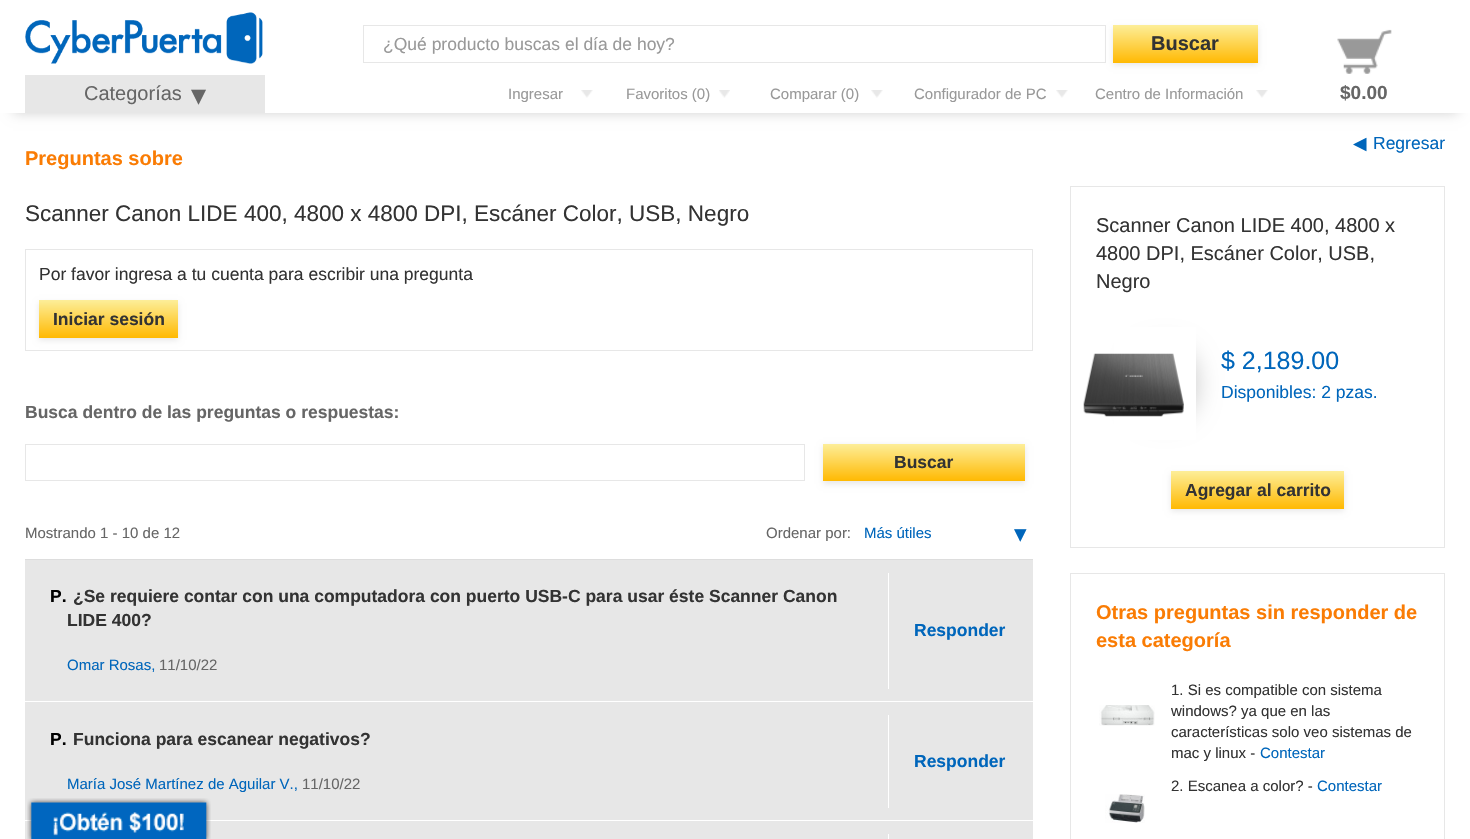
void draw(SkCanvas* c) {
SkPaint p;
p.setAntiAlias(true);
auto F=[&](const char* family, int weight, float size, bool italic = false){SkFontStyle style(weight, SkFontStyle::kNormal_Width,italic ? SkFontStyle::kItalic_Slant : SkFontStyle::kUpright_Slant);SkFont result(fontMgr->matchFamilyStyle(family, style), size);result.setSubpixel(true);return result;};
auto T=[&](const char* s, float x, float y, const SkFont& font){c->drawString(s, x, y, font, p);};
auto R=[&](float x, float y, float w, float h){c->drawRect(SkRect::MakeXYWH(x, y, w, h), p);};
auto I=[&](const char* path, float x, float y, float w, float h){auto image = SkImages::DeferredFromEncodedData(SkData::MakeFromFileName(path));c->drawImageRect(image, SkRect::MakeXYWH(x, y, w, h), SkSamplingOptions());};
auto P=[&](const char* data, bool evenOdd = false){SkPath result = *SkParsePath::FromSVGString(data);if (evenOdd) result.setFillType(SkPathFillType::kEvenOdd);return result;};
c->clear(0xffffffff);
c->save();
c->clipPath(P("M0 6h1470v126h-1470zm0-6h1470v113h-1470z",true),true);
p.setColor(0xffd2d2d2);
p.setMaskFilter(SkMaskFilter::MakeBlur(kNormal_SkBlurStyle, 6));
c->drawRect(SkRect::MakeXYWH(13,25,1445,88),p);
p.setMaskFilter(nullptr);
c->restore();
I("1.png",25,12,238,52);
p.setStroke(true);
p.setStrokeWidth(1);
p.setColor(0xffe7e7e7);
c->drawRect(SkRect::MakeXYWH(363.5,25.5,742,37),p);
auto f1 = F("Liberation Sans",400,17.5);
p.setStroke(false);
p.setColor(0xff999999);
T("¿Qué producto buscas el día de hoy?",383,50,f1);
p.setColor(0xffe7e7e7);
p.setMaskFilter(SkMaskFilter::MakeBlur(kNormal_SkBlurStyle, 3));
c->drawRect(SkRect::MakeXYWH(1113,28,145,37),p);
p.setMaskFilter(nullptr);
{
const SkColor colors[] = {0xfffdee99,0xffffb902};
const float stops[] = {0,1};
const SkPoint ends[] = {{1185,25}, {1185,63}};
p.setShader(SkGradientShader::MakeLinear(ends, colors, stops, 2, SkTileMode::kClamp));
p.setAlpha(255);
}
R(1113,25,145,38);
auto f2 = F("Liberation Sans",700,20);
p.setShader(nullptr);
p.setColor(0xff333333);
T("Buscar",1151,50,f2);
p.setColor(0xffe7e7e7);
R(25,75,240,38);
auto f3 = F("Liberation Sans",400,20);
p.setColor(0xff666666);
T("Categorías",84,100,f3);
auto f4 = F("DejaVu Sans",400,30);
T("▾",191,105,f4);
I("2.png",581,90,12,8);
auto f5 = F("Liberation Sans",400,15);
p.setColor(0xff999999);
T("Ingresar",508,99,f5);
I("3.png",719,90,11,8);
T("Favoritos (0)",626,99,f5);
I("4.png",871,90,12,8);
T("Comparar (0)",770,99,f5);
I("2.png",1056,90,12,8);
T("Configurador de PC",914,99,f5);
I("2.png",1256,90,12,8);
T("Centro de Información",1095,99,f5);
p.setColor(0xffffffff);
R(1295,112,138,1);
I("5.png",1337,29,55,45);
auto f6 = F("Liberation Sans",700,19);
p.setColor(0xff666666);
T("$0.00",1340,99,f6);
auto f7 = F("DejaVu Sans",400,17.5);
p.setColor(0xff0066bb);
T("◀",1353,149,f7);
T("Regresar",1373,149,f1);
p.setColor(0xfffa7c04);
T("Preguntas sobre",25,165,f2);
auto f8 = F("Liberation Sans",400,22.5);
p.setColor(0xff333333);
T("Scanner Canon LIDE 400, 4800 x 4800 DPI, Escáner Color, USB, Negro",25,221,f8);
p.setStroke(true);
p.setColor(0xffe7e7e7);
c->drawRect(SkRect::MakeXYWH(25.5,249.5,1007,101),p);
p.setStroke(false);
p.setColor(0xff333333);
T("Por favor ingresa a tu cuenta para escribir una pregunta",39,280,f1);
p.setColor(0xffe7e7e7);
p.setMaskFilter(SkMaskFilter::MakeBlur(kNormal_SkBlurStyle, 3));
c->drawRect(SkRect::MakeXYWH(39,303,139,37),p);
p.setMaskFilter(nullptr);
{
const SkColor colors[] = {0xfffdee99,0xffffb902};
const float stops[] = {0,1};
const SkPoint ends[] = {{108,300}, {108,338}};
p.setShader(SkGradientShader::MakeLinear(ends, colors, stops, 2, SkTileMode::kClamp));
p.setAlpha(255);
}
R(39,300,139,38);
auto f9 = F("Liberation Sans",700,17.5);
p.setShader(nullptr);
p.setColor(0xff333333);
T("Iniciar sesión",53,325,f9);
p.setColor(0xff666666);
T("Busca dentro de las preguntas o respuestas:",25,418,f9);
p.setStroke(true);
p.setColor(0xffe7e7e7);
c->drawRect(SkRect::MakeXYWH(25.5,444.5,779,36),p);
p.setStroke(false);
p.setMaskFilter(SkMaskFilter::MakeBlur(kNormal_SkBlurStyle, 3));
c->drawRect(SkRect::MakeXYWH(823,446,202,38),p);
p.setMaskFilter(nullptr);
{
const SkColor colors[] = {0xfffdee99,0xffffb902};
const float stops[] = {0,1};
const SkPoint ends[] = {{924,444}, {924,481}};
p.setShader(SkGradientShader::MakeLinear(ends, colors, stops, 2, SkTileMode::kClamp));
p.setAlpha(255);
}
R(823,444,202,37);
p.setShader(nullptr);
p.setColor(0xff333333);
T("Buscar",894,468,f9);
p.setColor(0xffdddddd);
R(25,559,1008,1);
p.setColor(0xff666666);
T("Mostrando 1 - 10 de 12",25,538,f5);
T("Ordenar por:",766,538,f5);
p.setColor(0xff0066bb);
T("Más útiles",864,538,f5);
auto f10 = F("DejaVu Sans",400,25);
T("▾",1014,542,f10);
p.setColor(0xffe7e7e7);
R(25,560,1008,260);
p.setColor(0xffffffff);
R(25,701,1008,1);
R(888,573,1,116);
p.setColor(0xff000000);
T("P.",50,602,f9);
p.setColor(0xff333333);
T("¿Se requiere contar con una computadora con puerto USB-C para usar éste Scanner Canon",73,602,f9);
T("LIDE 400?",67,626,f9);
p.setColor(0xff0066bb);
T("Omar Rosas,",67,670,f5);
p.setColor(0xff666666);
T("11/10/22",159,670,f5);
p.setColor(0xff0066bb);
T("Responder",914,636,f9);
p.setColor(0xffffffff);
R(888,715,1,93);
p.setColor(0xff000000);
T("P.",50,745,f9);
p.setColor(0xff333333);
T("Funciona para escanear negativos?",73,745,f9);
p.setColor(0xff0066bb);
T("María José Martínez de Aguilar V.,",67,789,f5);
p.setColor(0xff666666);
T("11/10/22",302,789,f5);
p.setColor(0xff0066bb);
T("Responder",914,767,f9);
p.setColor(0xffe7e7e7);
R(25,821,1008,18);
p.setColor(0xffffffff);
R(888,834,1,5);
p.setStroke(true);
p.setColor(0xffe7e7e7);
c->drawRect(SkRect::MakeXYWH(1070.5,186.5,374,361),p);
p.setStroke(false);
p.setColor(0xff333333);
T("Scanner Canon LIDE 400, 4800 x",1096,232,f3);
T("4800 DPI, Escáner Color, USB,",1096,260,f3);
T("Negro",1096,288,f3);
p.setColor(0xffc8c8c8);
p.setMaskFilter(SkMaskFilter::MakeBlur(kNormal_SkBlurStyle, 12.5));
c->drawRoundRect(SkRect::MakeXYWH(1134,346,62,75),31,31,p);
p.setMaskFilter(nullptr);
p.setColor(0xffffffff);
R(1114,327,82,113);
I("6.png",1083,353,101,64);
auto f11 = F("Liberation Sans",400,25);
p.setColor(0xff0066bb);
T("$ 2,189.00",1221,369,f11);
T("Disponibles: 2 pzas.",1221,398,f1);
p.setColor(0xffe7e7e7);
p.setMaskFilter(SkMaskFilter::MakeBlur(kNormal_SkBlurStyle, 3));
c->drawRect(SkRect::MakeXYWH(1171,474,173,37),p);
p.setMaskFilter(nullptr);
{
const SkColor colors[] = {0xfffdee99,0xffffb902};
const float stops[] = {0,1};
const SkPoint ends[] = {{1258,471}, {1258,509}};
p.setShader(SkGradientShader::MakeLinear(ends, colors, stops, 2, SkTileMode::kClamp));
p.setAlpha(255);
}
R(1171,471,173,38);
p.setShader(nullptr);
p.setColor(0xff333333);
T("Agregar al carrito",1185,496,f9);
p.setStroke(true);
p.setColor(0xffe7e7e7);
c->drawRect(SkRect::MakeXYWH(1070.5,573.5,374,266),p);
p.setStroke(false);
p.setColor(0xfffa7c04);
T("Otras preguntas sin responder de",1096,619,f2);
T("esta categoría",1096,647,f2);
I("7.png",1099,705,56,21);
p.setColor(0xff333333);
T("1. Si es compatible con sistema",1171,695,f5);
T("windows? ya que en las",1171,716,f5);
T("características solo veo sistemas de",1171,737,f5);
T("mac y linux -",1171,758,f5);
p.setColor(0xff0066bb);
T("Contestar",1260,758,f5);
p.setColor(0xff333333);
T("2. Escanea a color? -",1171,791,f5);
p.setColor(0xff0066bb);
T("Contestar",1317,791,f5);
I("8.png",1105,794,40,29);
I("9.png",27,798,184,41);
}
